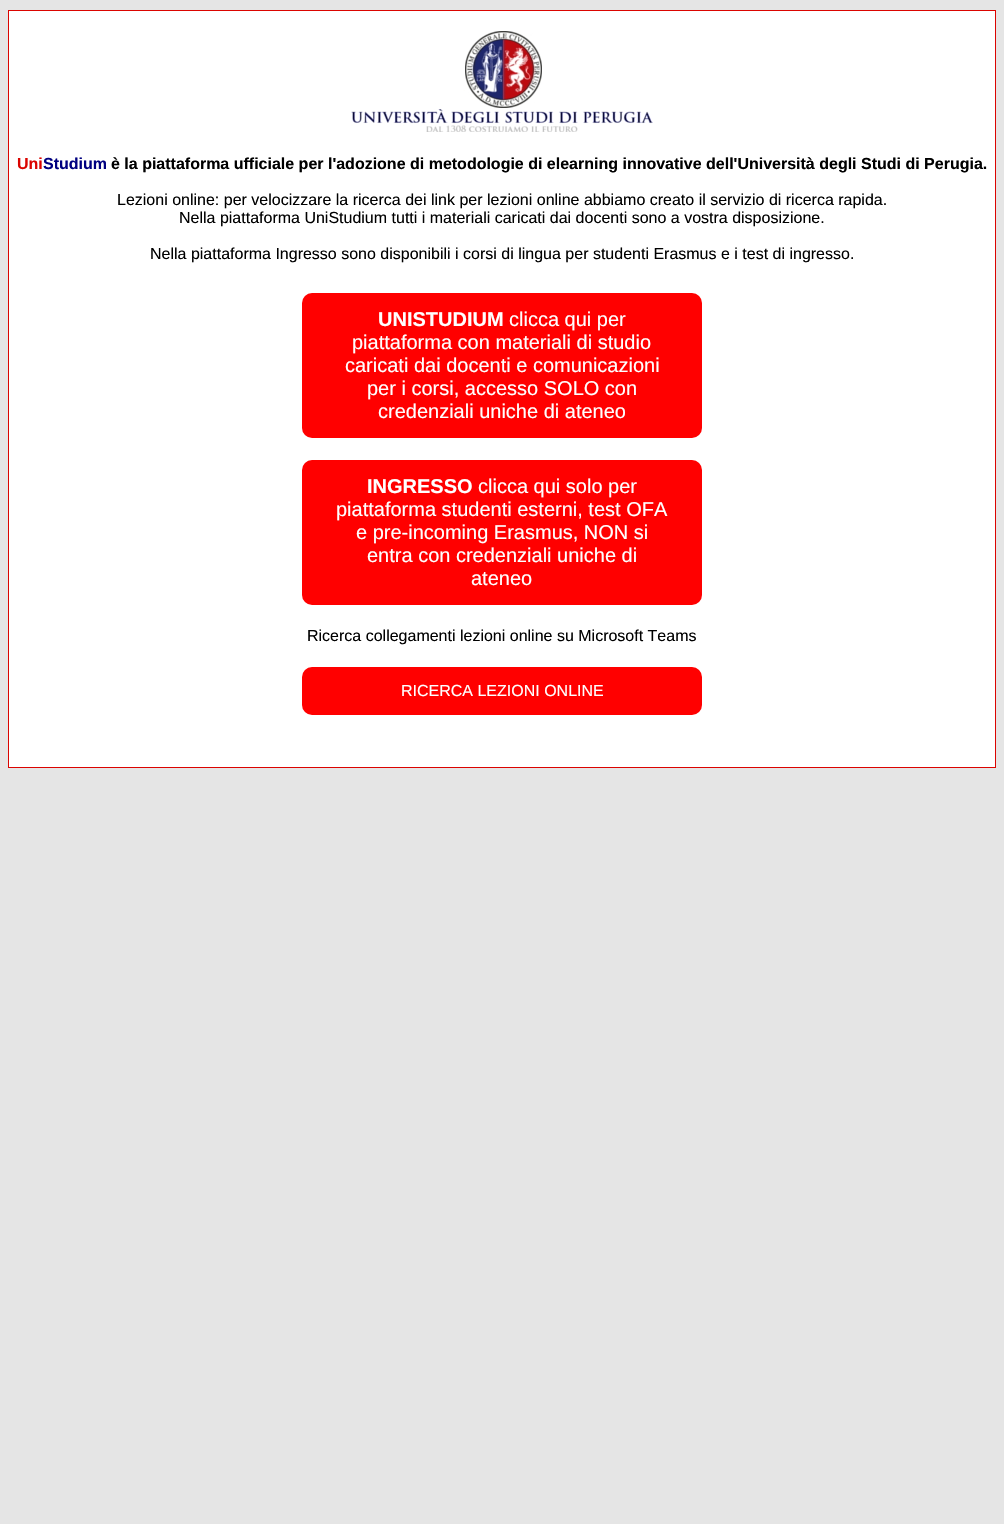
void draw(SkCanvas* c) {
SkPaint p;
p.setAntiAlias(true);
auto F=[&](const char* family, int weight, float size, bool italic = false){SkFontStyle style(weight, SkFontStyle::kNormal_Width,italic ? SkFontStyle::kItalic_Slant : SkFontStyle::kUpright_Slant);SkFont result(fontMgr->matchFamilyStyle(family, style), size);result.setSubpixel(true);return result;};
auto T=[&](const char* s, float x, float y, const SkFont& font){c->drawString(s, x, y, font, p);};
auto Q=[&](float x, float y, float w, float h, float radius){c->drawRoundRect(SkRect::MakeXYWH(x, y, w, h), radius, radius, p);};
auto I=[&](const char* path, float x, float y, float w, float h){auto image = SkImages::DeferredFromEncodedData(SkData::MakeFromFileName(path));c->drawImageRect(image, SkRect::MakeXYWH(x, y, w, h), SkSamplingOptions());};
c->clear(0xffe5e5e5);
p.setColor(0xffffffff);
c->drawRect(SkRect::MakeXYWH(8.5,10.5,987,757),p);
p.setStroke(true);
p.setStrokeWidth(1);
p.setColor(0xffdb0400);
c->drawRect(SkRect::MakeXYWH(8.5,10.5,987,757),p);
I("1.png",351,31,302,101);
auto f1 = F("Liberation Sans",700,16);
p.setStroke(false);
T("Uni",17,169,f1);
p.setColor(0xff000080);
T("Studium",43,169,f1);
p.setColor(0xff000000);
T("è la piattaforma ufficiale per l'adozione di metodologie di elearning innovative dell'Università degli Studi di Perugia.",111,169,f1);
auto f2 = F("Liberation Sans",400,16);
T("Lezioni online: per velocizzare la ricerca dei link per lezioni online abbiamo creato il servizio di ricerca rapida.",117,205,f2);
T("Nella piattaforma UniStudium tutti i materiali caricati dai docenti sono a vostra disposizione.",179,223,f2);
T("Nella piattaforma Ingresso sono disponibili i corsi di lingua per studenti Erasmus e i test di ingresso.",150,259,f2);
p.setColor(0xffff0000);
Q(302,293,400,145,10);
auto f3 = F("Liberation Sans",700,20);
p.setColor(0xffffffff);
T("UNISTUDIUM",378,326,f3);
auto f4 = F("Liberation Sans",400,20);
T("clicca qui per",509,326,f4);
T("piattaforma con materiali di studio",352,349,f4);
T("caricati dai docenti e comunicazioni",345,372,f4);
T("per i corsi, accesso SOLO con",367,395,f4);
T("credenziali uniche di ateneo",378,418,f4);
p.setColor(0xffff0000);
Q(302,460,400,145,10);
p.setColor(0xffffffff);
T("INGRESSO",367,493,f3);
T("clicca qui solo per",478,493,f4);
T("piattaforma studenti esterni, test OFA",336,516,f4);
T("e pre-incoming Erasmus, NON si",356,539,f4);
T("entra con credenziali uniche di",367,562,f4);
T("ateneo",471,585,f4);
p.setColor(0xff000000);
T("Ricerca collegamenti lezioni online su Microsoft Teams",307,641,f2);
p.setColor(0xffff0000);
Q(302,667,400,48,10);
p.setColor(0xffffffff);
T("RICERCA LEZIONI ONLINE",401,696,f2);
}
